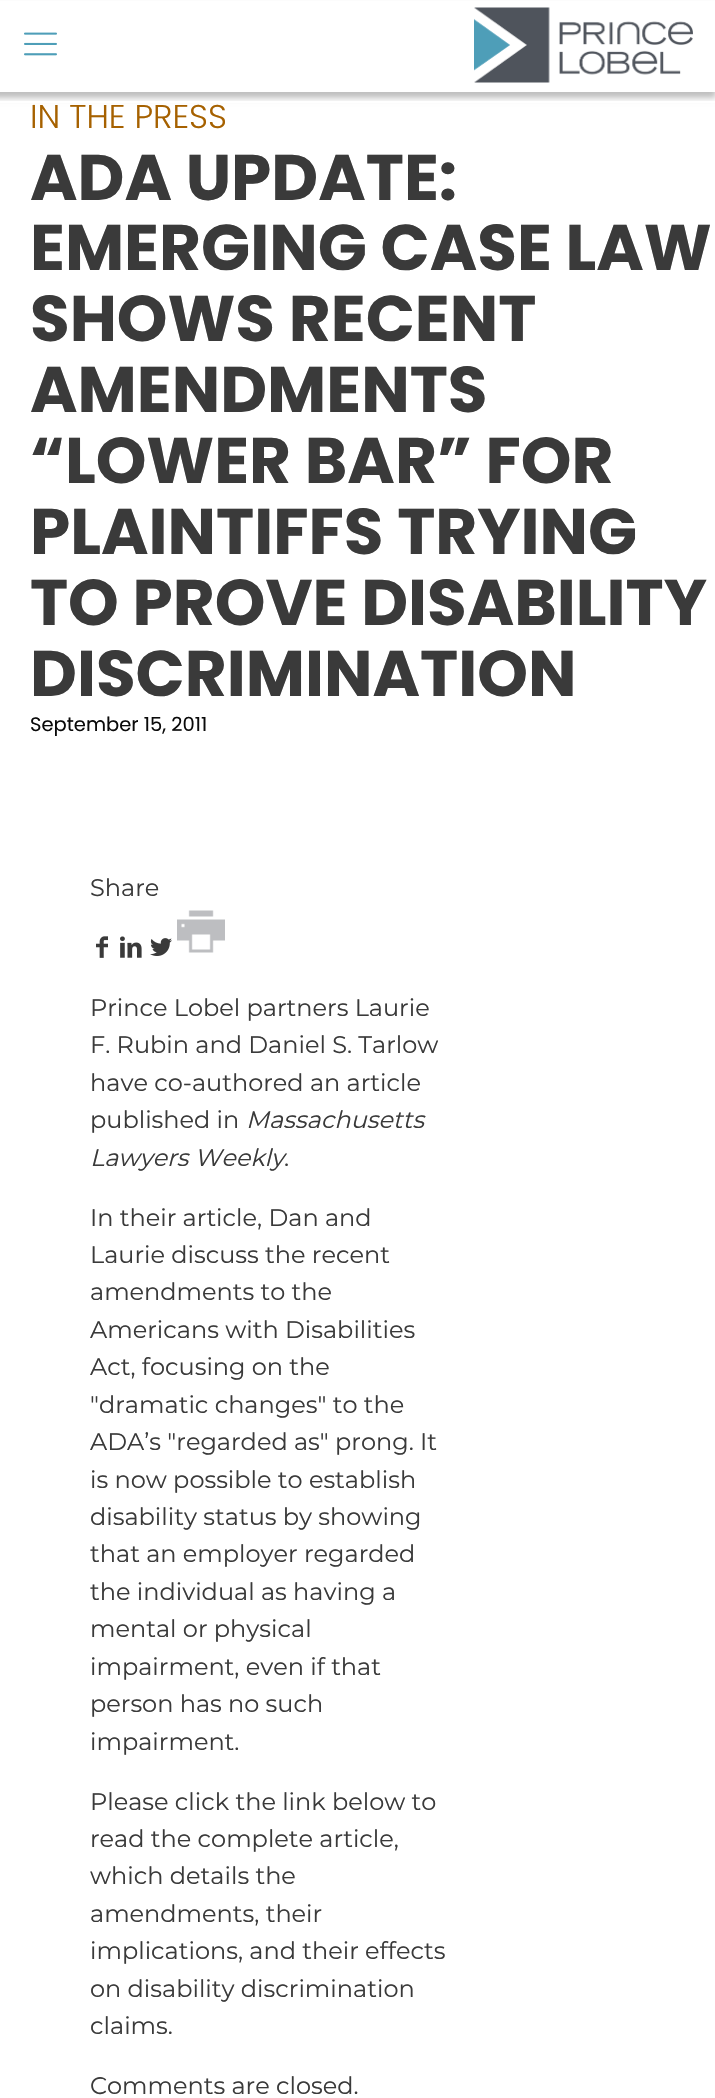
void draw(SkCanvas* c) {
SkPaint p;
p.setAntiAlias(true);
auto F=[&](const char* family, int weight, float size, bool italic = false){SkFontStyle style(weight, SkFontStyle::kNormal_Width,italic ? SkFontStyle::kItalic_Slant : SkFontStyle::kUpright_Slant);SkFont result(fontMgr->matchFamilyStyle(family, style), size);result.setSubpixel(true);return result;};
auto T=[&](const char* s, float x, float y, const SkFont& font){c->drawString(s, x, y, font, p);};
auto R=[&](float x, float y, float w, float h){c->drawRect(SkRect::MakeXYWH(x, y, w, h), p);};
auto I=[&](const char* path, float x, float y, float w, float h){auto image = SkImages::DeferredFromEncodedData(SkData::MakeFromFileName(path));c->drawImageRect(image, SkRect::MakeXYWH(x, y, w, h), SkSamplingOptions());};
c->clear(0xffffffff);
p.setColor(0x40000000);
p.setMaskFilter(SkMaskFilter::MakeBlur(kNormal_SkBlurStyle, 3));
c->drawRect(SkRect::MakeXYWH(-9,6,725,92),p);
p.setMaskFilter(nullptr);
p.setColor(0xffffffff);
R(0,1,715,91);
I("1.png",24,32,33,24);
I("2.png",474,7,219,76);
R(0,101,715,2);
auto f1 = F("Poppins",300,33);
p.setColor(0xffa66100);
T("IN THE PRESS",30,128,f1);
auto f2 = F("Poppins",700,64.5);
p.setColor(0xff3a3a3a);
T("ADA UPDATE:",30,200,f2);
T("EMERGING CASE LAW",30,270,f2);
T("SHOWS RECENT",30,341,f2);
T("AMENDMENTS",30,412,f2);
T("“LOWER BAR” FOR",30,483,f2);
T("PLAINTIFFS TRYING",30,554,f2);
T("TO PROVE DISABILITY",30,625,f2);
T("DISCRIMINATION",30,696,f2);
auto f3 = F("Poppins",400,19.5);
p.setColor(0xff0a0a0a);
T("September 15, 2011",30,731,f3);
auto f4 = F("Montserrat",400,24);
p.setColor(0xff3a3a3a);
T("Share",90,896,f4);
I("3.png",96,936,12,22);
I("4.png",120,936,22,22);
I("5.png",150,938,22,18);
I("6.png",177,910,48,43);
T("Prince Lobel partners Laurie",90,1016,f4);
T("F. Rubin and Daniel S. Tarlow",90,1053,f4);
T("have co-authored an article",90,1091,f4);
T("published in",90,1128,f4);
auto f5 = F("Montserrat",400,24,true);
T("Massachusetts",246,1128,f5);
T("Lawyers Weekly",90,1166,f5);
T(".",284,1166,f4);
T("In their article, Dan and",90,1226,f4);
T("Laurie discuss the recent",90,1263,f4);
T("amendments to the",90,1300,f4);
T("Americans with Disabilities",90,1338,f4);
T("Act, focusing on the",90,1375,f4);
T("\"dramatic changes\" to the",90,1413,f4);
T("ADA’s \"regarded as\" prong. It",90,1450,f4);
T("is now possible to establish",90,1488,f4);
T("disability status by showing",90,1525,f4);
T("that an employer regarded",90,1562,f4);
T("the individual as having a",90,1600,f4);
T("mental or physical",90,1637,f4);
T("impairment, even if that",90,1675,f4);
T("person has no such",90,1712,f4);
T("impairment.",90,1750,f4);
T("Please click the link below to",90,1810,f4);
T("read the complete article,",90,1847,f4);
T("which details the",90,1884,f4);
T("amendments, their",90,1922,f4);
T("implications, and their effects",90,1959,f4);
T("on disability discrimination",90,1997,f4);
T("claims.",90,2034,f4);
T("Comments are closed.",90,2094,f4);
}
